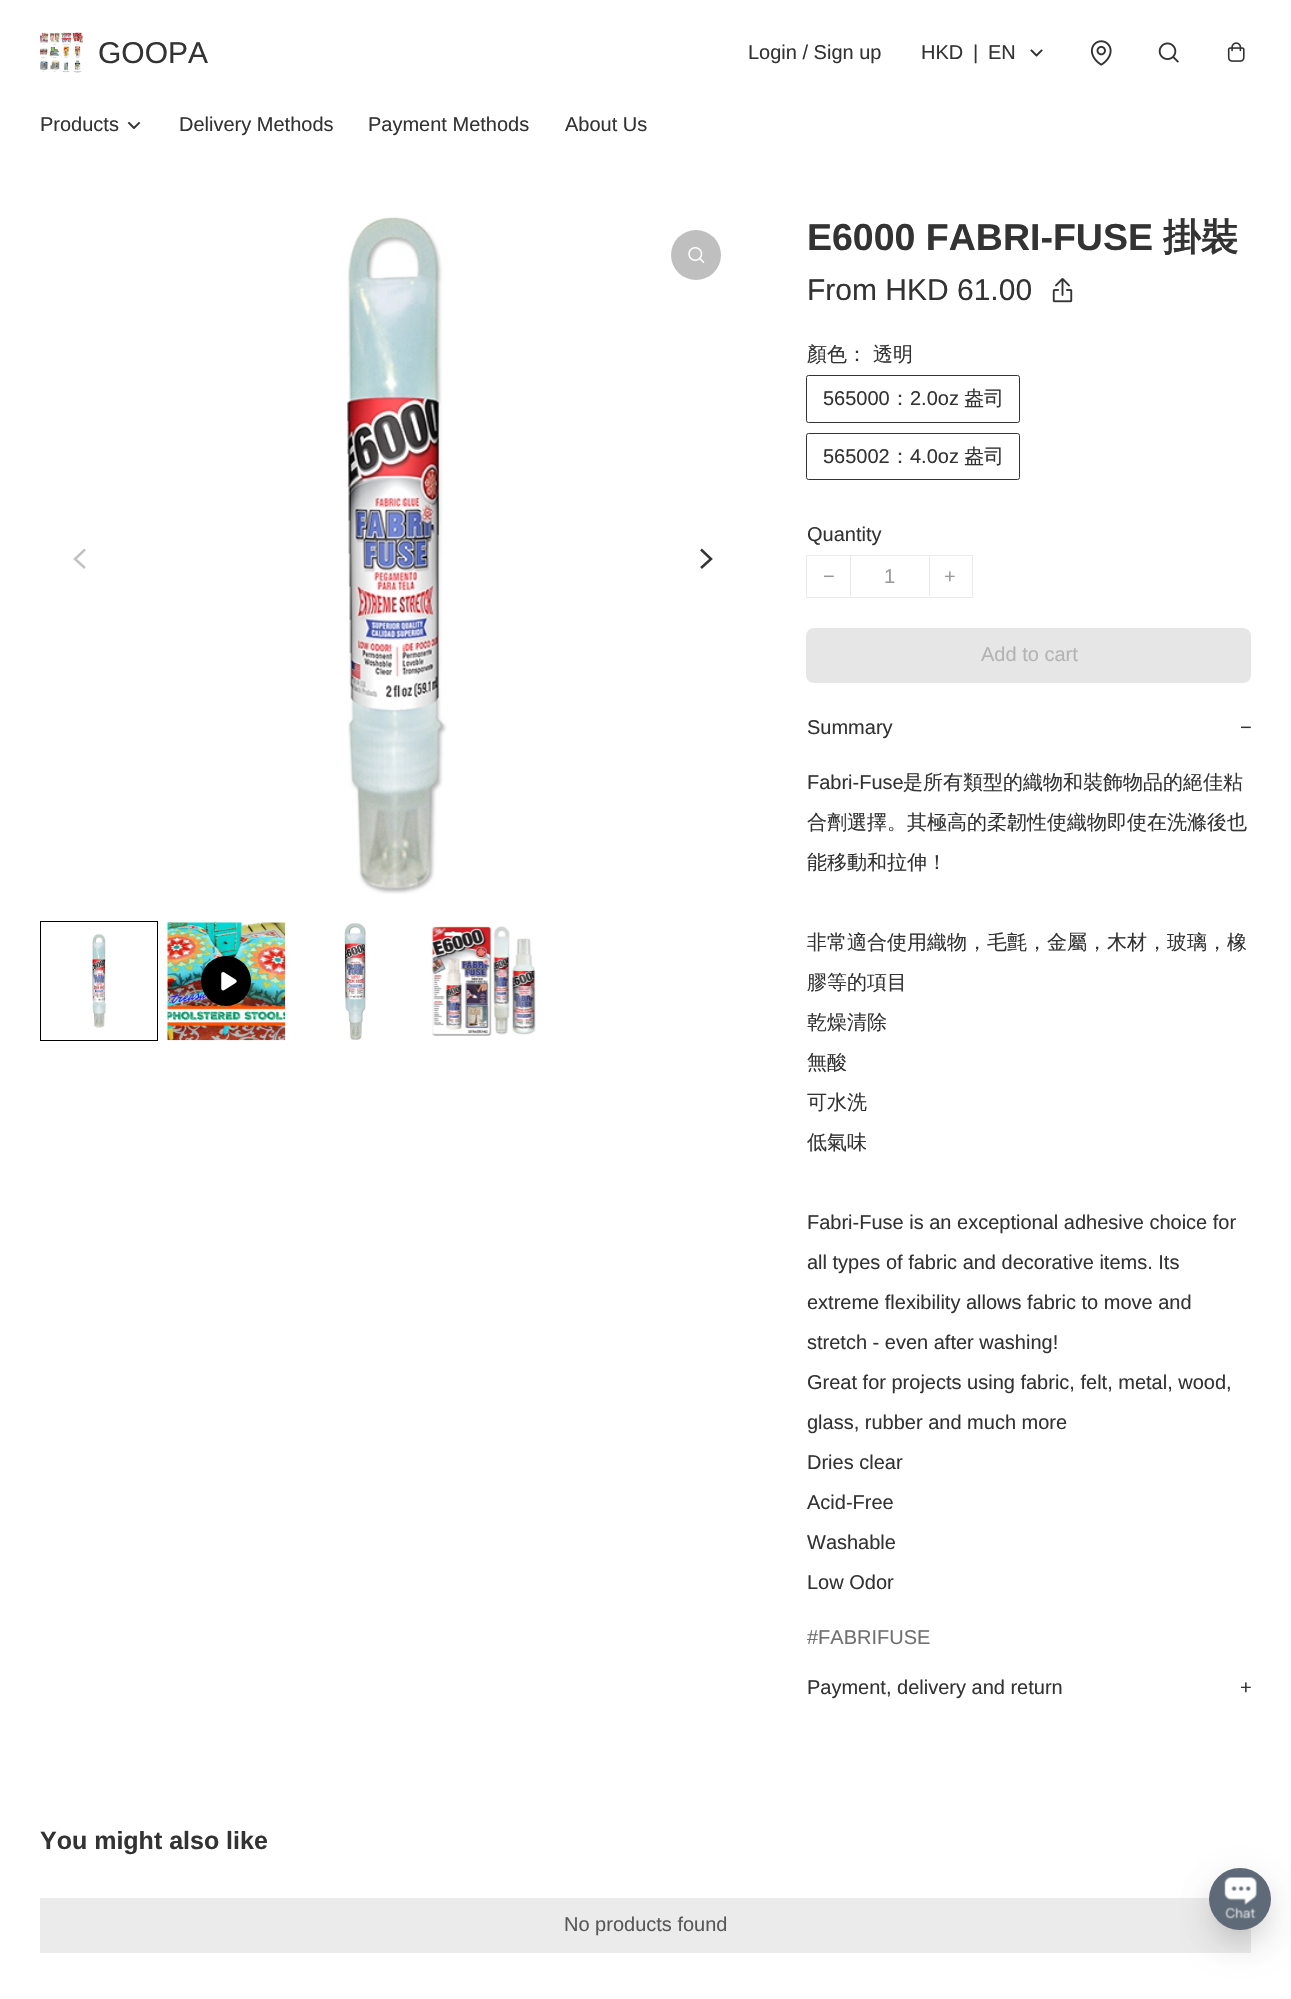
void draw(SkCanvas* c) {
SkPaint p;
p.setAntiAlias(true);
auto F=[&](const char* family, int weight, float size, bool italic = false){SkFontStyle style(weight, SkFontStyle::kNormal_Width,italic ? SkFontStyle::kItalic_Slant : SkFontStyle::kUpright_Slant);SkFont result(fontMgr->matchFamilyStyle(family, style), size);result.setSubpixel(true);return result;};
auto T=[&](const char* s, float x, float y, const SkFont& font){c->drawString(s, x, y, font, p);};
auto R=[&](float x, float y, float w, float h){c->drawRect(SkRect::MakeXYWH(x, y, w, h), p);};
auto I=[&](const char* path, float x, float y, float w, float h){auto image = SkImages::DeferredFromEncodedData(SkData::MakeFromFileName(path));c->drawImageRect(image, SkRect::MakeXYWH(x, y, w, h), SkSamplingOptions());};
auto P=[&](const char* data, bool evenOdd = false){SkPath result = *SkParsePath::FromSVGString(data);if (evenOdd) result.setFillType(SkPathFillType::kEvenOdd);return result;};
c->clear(0xffffffff);
I("1.png",40,32,43,41);
auto f1 = F("Liberation Sans",400,30);
p.setColor(0xff333333);
T("GOOPA",98,63,f1);
auto f2 = F("Liberation Sans",400,20);
T("Login / Sign up",748,59,f2);
T("HKD",921,59,f2);
T("|",973,59,f2);
T("EN",988,59,f2);
p.setStroke(true);
p.setStrokeWidth(1.9);
p.setStrokeCap(SkPaint::kSquare_Cap);
p.setStrokeJoin(SkPaint::kRound_Join);
c->drawPath(P("M1031.5 50.5l5 5l5-5"),p);
I("2.png",1090,40,22,26);
I("3.png",1158,42,21,21);
I("4.png",1227,42,18,20);
p.setStroke(false);
T("Products",40,131,f2);
p.setStroke(true);
c->drawPath(P("M129 123l5 5l5-5"),p);
p.setStroke(false);
T("Delivery Methods",179,131,f2);
T("Payment Methods",368,131,f2);
T("About Us",565,131,f2);
I("5.png",347,216,100,678);
p.setColor(0xffbfbfbf);
c->drawCircle(696,255,25,p);
I("6.png",688,247,17,16);
p.setStroke(true);
p.setStrokeWidth(2.5);
p.setStrokeCap(SkPaint::kButt_Cap);
p.setStrokeJoin(SkPaint::kMiter_Join);
p.setColor(0xffc2c2c2);
c->drawPath(P("M85 549.5l-10 9.5l10 9"),p);
p.setColor(0xff333333);
c->drawPath(P("M701 549.5l10 9.5l-10 9"),p);
p.setStrokeWidth(1);
p.setColor(0xff000000);
c->drawRect(SkRect::MakeXYWH(40.5,921.5,117,119),p);
I("7.png",92,934,14,94);
I("8.png",167,922,119,119);
p.setStroke(false);
c->drawCircle(226,981,25,p);
I("9.png",221,972,16,19);
I("10.png",344,923,22,117);
I("11.png",430,926,106,110);
auto f3 = F("Liberation Sans",700,37.5);
p.setColor(0xff333333);
T("E6000 FABRI-FUSE",807,250,f3);
auto f4 = F("WenQuanYi Zen Hei",700,37.5);
T("掛裝",1163,250,f4);
T("From HKD 61.00",807,300,f1);
I("12.png",1052,278,21,25);
auto f5 = F("WenQuanYi Zen Hei",500,20);
T("顏色： 透明",807,361,f5);
p.setStroke(true);
c->drawRoundRect(SkRect::MakeXYWH(806.5,375.5,213,47),2,2,p);
p.setStroke(false);
T("565000",823,405,f2);
T("：",890,405,f5);
T("2.0oz",910,405,f2);
T("盎司",964,405,f5);
p.setStroke(true);
c->drawRoundRect(SkRect::MakeXYWH(806.5,433.5,213,46),2,2,p);
p.setStroke(false);
T("565002",823,463,f2);
T("：",890,463,f5);
T("4.0oz",910,463,f2);
T("盎司",964,463,f5);
T("Quantity",807,541,f2);
p.setStroke(true);
p.setColor(0xffebebeb);
c->drawRect(SkRect::MakeXYWH(806.5,555.5,166,42),p);
p.setStroke(false);
p.setColor(0xff999999);
T("−",823,583,f2);
p.setColor(0xffebebeb);
R(929,556,1,40);
R(850,556,1,40);
p.setColor(0xff999999);
T("1",884,583,f2);
T("+",944,583,f2);
p.setColor(0xffe6e6e6);
c->drawRoundRect(SkRect::MakeXYWH(807.5,629.5,442,52),6.5,6.5,p);
p.setStroke(true);
p.setStrokeWidth(3);
c->drawRoundRect(SkRect::MakeXYWH(807.5,629.5,442,52),6.5,6.5,p);
p.setStroke(false);
p.setColor(0xffb3b3b3);
T("Add to cart",981,661,f2);
p.setColor(0xff333333);
T("Summary",807,734,f2);
T("−",1240,734,f2);
T("Fabri-Fuse",807,789,f2);
T("是所有類型的織物和裝飾物品的絕佳粘",903,789,f5);
T("合劑選擇。其極高的柔韌性使織物即使在洗滌後也",807,829,f5);
T("能移動和拉伸！",807,869,f5);
T("非常適合使用織物，毛氈，金屬，木材，玻璃，橡",807,949,f5);
T("膠等的項目",807,989,f5);
T("乾燥清除",807,1029,f5);
T("無酸",807,1069,f5);
T("可水洗",807,1109,f5);
T("低氣味",807,1149,f5);
T("Fabri-Fuse is an exceptional adhesive choice for",807,1229,f2);
T("all types of fabric and decorative items. Its",807,1269,f2);
T("extreme flexibility allows fabric to move and",807,1309,f2);
T("stretch - even after washing!",807,1349,f2);
T("Great for projects using fabric, felt, metal, wood,",807,1389,f2);
T("glass, rubber and much more",807,1429,f2);
T("Dries clear",807,1469,f2);
T("Acid-Free",807,1509,f2);
T("Washable",807,1549,f2);
T("Low Odor",807,1589,f2);
p.setColor(0xff707070);
T("#FABRIFUSE",807,1644,f2);
p.setColor(0xff333333);
T("Payment, delivery and return",807,1694,f2);
T("+",1240,1694,f2);
auto f6 = F("Liberation Sans",700,25);
T("You might also like",40,1849,f6);
p.setColor(0xffebebeb);
R(40,1898,1211,55);
p.setColor(0xff585858);
T("No products found",564,1931,f2);
p.setColor(0x4d000000);
p.setMaskFilter(SkMaskFilter::MakeBlur(kNormal_SkBlurStyle, 19));
c->drawRoundRect(SkRect::MakeXYWH(1221,1899,38,37),18.5,18.5,p);
p.setMaskFilter(nullptr);
p.setColor(0x0d000000);
p.setMaskFilter(SkMaskFilter::MakeBlur(kNormal_SkBlurStyle, 12.5));
c->drawRoundRect(SkRect::MakeXYWH(1209,1874,62,62),31,31,p);
p.setMaskFilter(nullptr);
p.setColor(0xff5f6a78);
c->drawCircle(1240,1899,31,p);
I("13.png",1224,1877,33,42);
}
